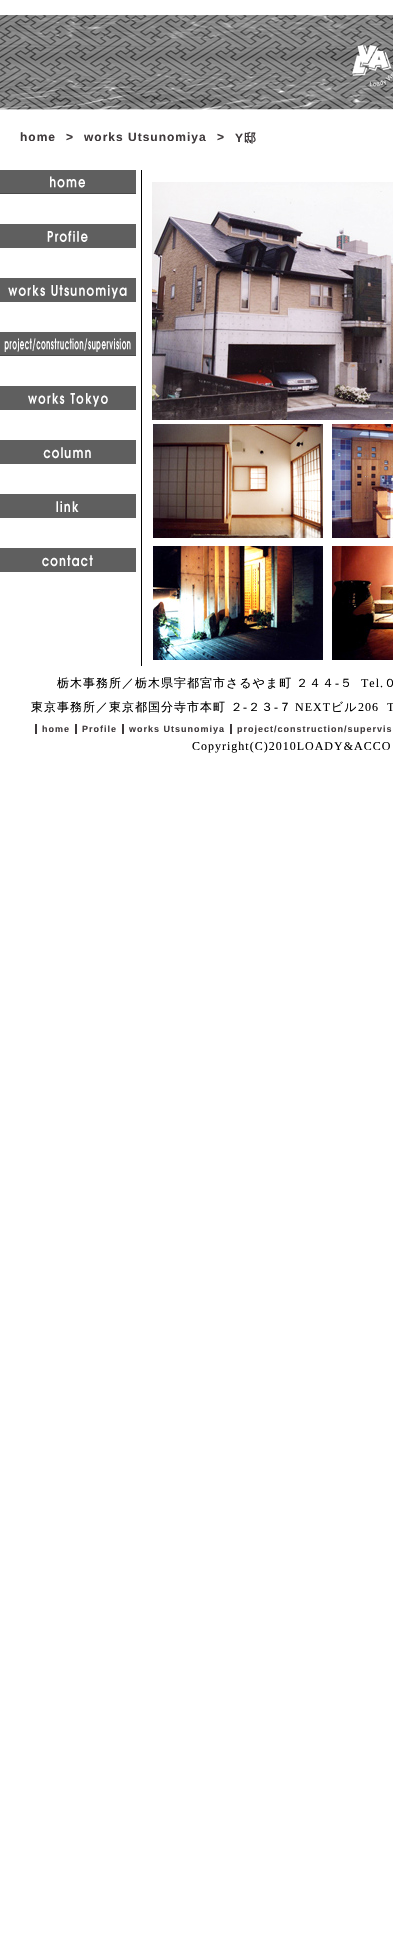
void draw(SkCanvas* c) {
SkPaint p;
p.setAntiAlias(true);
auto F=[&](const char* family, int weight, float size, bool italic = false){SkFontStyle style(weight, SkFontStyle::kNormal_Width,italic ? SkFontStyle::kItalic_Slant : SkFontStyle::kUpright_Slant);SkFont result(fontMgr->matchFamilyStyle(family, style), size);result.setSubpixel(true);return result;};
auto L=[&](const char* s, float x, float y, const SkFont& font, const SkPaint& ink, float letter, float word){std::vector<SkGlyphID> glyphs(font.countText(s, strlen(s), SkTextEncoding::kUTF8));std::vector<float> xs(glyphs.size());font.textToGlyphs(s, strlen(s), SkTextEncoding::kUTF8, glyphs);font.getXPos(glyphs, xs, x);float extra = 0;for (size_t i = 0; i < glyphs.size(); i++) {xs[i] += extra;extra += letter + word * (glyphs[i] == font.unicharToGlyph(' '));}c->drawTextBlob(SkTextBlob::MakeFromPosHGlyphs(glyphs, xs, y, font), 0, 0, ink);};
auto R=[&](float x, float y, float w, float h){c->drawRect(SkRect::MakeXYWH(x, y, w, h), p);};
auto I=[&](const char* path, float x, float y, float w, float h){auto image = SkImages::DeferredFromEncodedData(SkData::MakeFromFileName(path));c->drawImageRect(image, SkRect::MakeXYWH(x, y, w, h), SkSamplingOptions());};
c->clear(0xffffffff);
I("1.png",0,15,393,95);
auto f1 = F("Liberation Sans",700,12);
p.setColor(0xff3f3a3c);
L("home",20,141,f1,p,1,0);
L(">",66,141,f1,p,1,0);
L("works Utsunomiya",84,141,f1,p,1,0);
L(">",217,141,f1,p,1,0);
L("Y",235,142,f1,p,1,0);
auto f2 = F("WenQuanYi Zen Hei",700,12);
L("邸",244,142,f2,p,1,0);
I("2.png",0,170,136,24);
I("3.png",0,224,136,24);
I("4.png",0,278,136,24);
I("5.png",0,332,136,24);
I("6.png",0,386,136,24);
I("7.png",0,440,136,24);
I("8.png",0,494,136,24);
I("9.png",0,548,136,24);
p.setColor(0xff000000);
R(141,170,1,496);
I("10.png",152,182,241,238);
I("11.png",153,424,170,114);
I("12.png",332,424,61,114);
I("13.png",153,546,170,114);
I("14.png",332,546,61,114);
auto f3 = F("WenQuanYi Zen Hei",500,12);
L("栃木事務所／栃木県宇都宮市さるやま町",57,687,f3,p,1,0);
L("２４４",296,687,f3,p,1,0);
auto f4 = F("Liberation Serif",400,12);
L("-",335,687,f4,p,1,0);
L("５",340,687,f3,p,1,0);
L("Tel.",361,687,f4,p,1,0);
L("０",384,687,f3,p,1,0);
L("東京事務所／東京都国分寺市本町 ２",31,711,f3,p,1,0);
L("-",243,711,f4,p,1,0);
L("２３",248,711,f3,p,1,0);
L("-",274,711,f4,p,1,0);
L("７",279,711,f3,p,1,0);
L("NEXT",295,711,f4,p,1,0);
L("ビル",331,711,f3,p,1,0);
L("206  T",358,711,f4,p,1,0);
p.setColor(0xff3f3a3c);
R(35,724,2,10);
auto f5 = F("Liberation Sans",700,9);
L("home",42,732,f5,p,1,0);
R(75,724,2,10);
L("Profile",82,732,f5,p,1,0);
R(122,724,2,10);
L("works Utsunomiya",129,732,f5,p,1,0);
R(230,724,2,10);
L("project/construction/supervis",237,732,f5,p,1,0);
p.setColor(0xff000000);
L("Copyright(C)2010LOADY&ACCO",192,750,f4,p,1,0);
}
